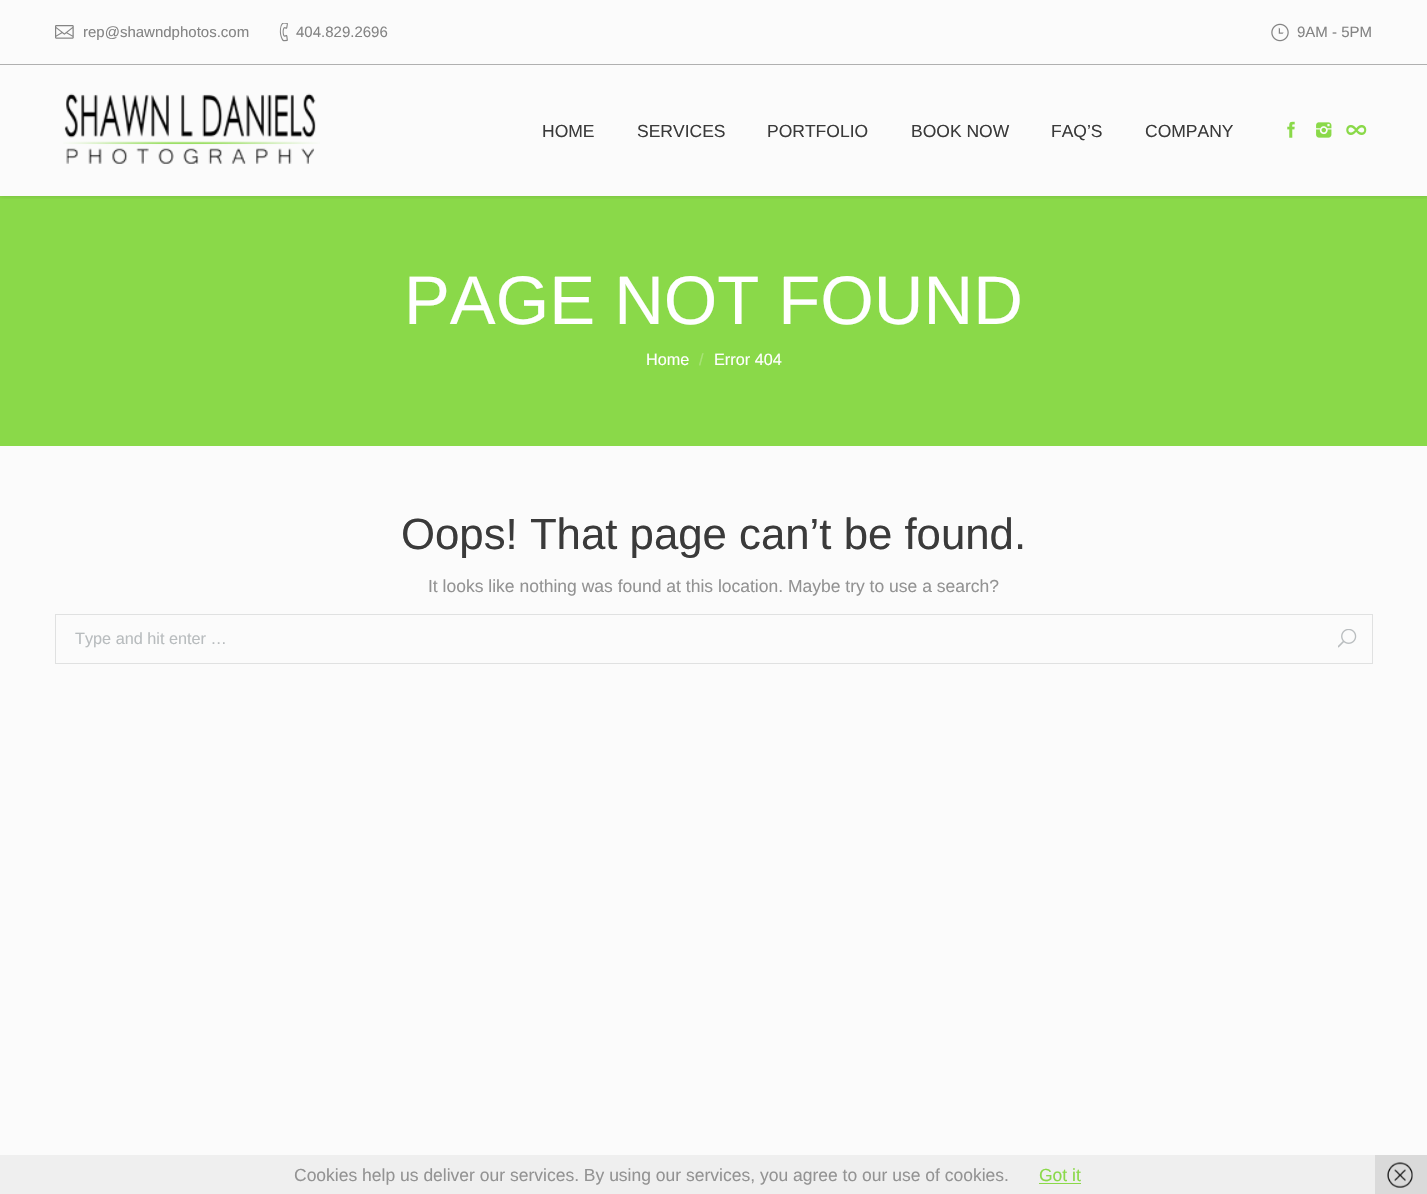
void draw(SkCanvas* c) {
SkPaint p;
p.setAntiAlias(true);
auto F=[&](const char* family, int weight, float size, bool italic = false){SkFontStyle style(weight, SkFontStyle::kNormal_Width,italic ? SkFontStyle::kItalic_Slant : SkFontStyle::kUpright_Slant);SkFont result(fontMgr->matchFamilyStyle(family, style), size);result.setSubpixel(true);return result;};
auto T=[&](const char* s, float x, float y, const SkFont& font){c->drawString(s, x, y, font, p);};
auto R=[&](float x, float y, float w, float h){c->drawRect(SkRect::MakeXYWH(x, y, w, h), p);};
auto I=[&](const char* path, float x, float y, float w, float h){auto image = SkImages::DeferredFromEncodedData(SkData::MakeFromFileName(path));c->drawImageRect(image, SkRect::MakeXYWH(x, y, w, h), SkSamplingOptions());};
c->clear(0xfffbfbfb);
p.setColor(0xff8ad949);
R(0,196,1427,250);
c->save();
c->clipRect(SkRect::MakeXYWH(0,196,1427,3));
p.setColor(0x26000000);
p.setMaskFilter(SkMaskFilter::MakeBlur(kNormal_SkBlurStyle, 2.5));
c->drawRect(SkRect::MakeXYWH(0,0,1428,196),p);
p.setMaskFilter(nullptr);
c->restore();
p.setColor(0xffb0b0b0);
R(0,64,1427,1);
I("1.png",55,25,19,14);
auto f1 = F("Liberation Sans",400,15);
p.setColor(0xff848484);
T("rep@shawndphotos.com",83,37,f1);
I("2.png",279,23,9,19);
T("404.829.2696",296,37,f1);
I("3.png",1271,23,18,19);
T("9AM - 5PM",1297,37,f1);
I("4.png",63,93,257,71);
auto f2 = F("Liberation Sans",400,17.5);
p.setColor(0xff3a3a3a);
T("HOME",542,137,f2);
T("SERVICES",637,137,f2);
T("PORTFOLIO",767,137,f2);
T("BOOK NOW",911,137,f2);
T("FAQ’S",1051,137,f2);
T("COMPANY",1145,137,f2);
I("5.png",1287,121,8,17);
I("6.png",1316,122,16,16);
I("7.png",1346,125,21,10);
auto f3 = F("Liberation Sans",400,68.75);
p.setColor(0xffffffff);
T("PAGE NOT FOUND",404,324,f3);
auto f4 = F("Liberation Sans",400,16.25);
T("Home",646,365,f4);
p.setColor(0xffa8e377);
T("/",699,365,f4);
p.setColor(0xffffffff);
T("Error 404",714,365,f4);
auto f5 = F("Liberation Sans",400,43.75);
p.setColor(0xff3a3a3a);
T("Oops! That page can’t be found.",401,549,f5);
p.setColor(0xff939393);
T("It looks like nothing was found at this location. Maybe try to use a search?",428,592,f2);
p.setStroke(true);
p.setStrokeWidth(1);
p.setColor(0xffe0e1e1);
c->drawRect(SkRect::MakeXYWH(55.5,614.5,1317,49),p);
p.setStroke(false);
p.setColor(0xffb8bcbe);
T("Type and hit enter …",75,644,f4);
I("8.png",1338,629,19,19);
p.setColor(0xffefefef);
R(0,1155,1375,39);
p.setColor(0xff939393);
T("Cookies help us deliver our services. By using our services, you agree to our use of cookies.",294,1181,f2);
p.setColor(0xff8ad949);
T("Got it",1039,1181,f2);
R(1039,1183,42,1);
p.setColor(0xffdadada);
R(1375,1155,52,39);
I("9.png",1387,1162,26,26);
}
